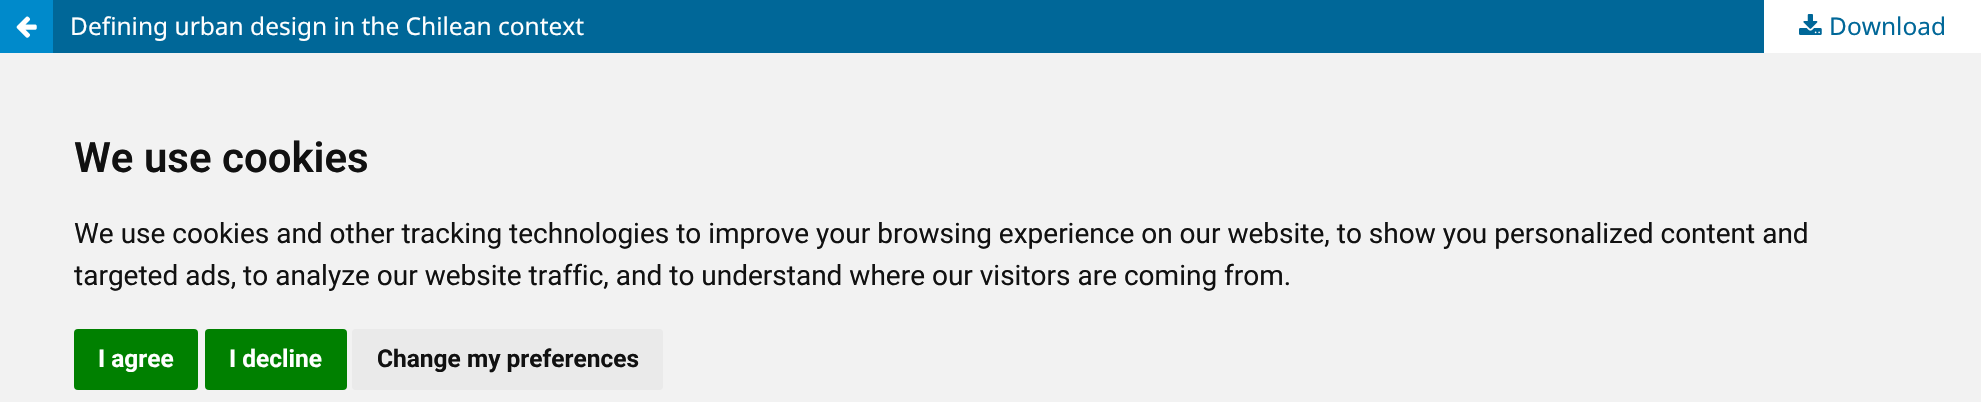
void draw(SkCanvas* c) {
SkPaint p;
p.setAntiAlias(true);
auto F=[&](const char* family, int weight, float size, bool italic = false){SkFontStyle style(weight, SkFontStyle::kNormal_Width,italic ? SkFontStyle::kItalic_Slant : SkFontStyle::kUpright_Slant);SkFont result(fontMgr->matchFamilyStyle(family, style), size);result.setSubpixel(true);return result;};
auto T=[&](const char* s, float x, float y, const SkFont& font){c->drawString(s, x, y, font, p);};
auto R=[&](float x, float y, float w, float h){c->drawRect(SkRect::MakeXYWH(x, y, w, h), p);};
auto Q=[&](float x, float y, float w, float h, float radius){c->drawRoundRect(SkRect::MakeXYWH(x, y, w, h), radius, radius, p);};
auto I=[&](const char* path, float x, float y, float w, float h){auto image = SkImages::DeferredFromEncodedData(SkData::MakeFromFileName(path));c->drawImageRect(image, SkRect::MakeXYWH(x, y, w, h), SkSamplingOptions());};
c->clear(0xff006798);
p.setColor(0xff008acb);
R(0,0,53,53);
I("1.png",16,16,21,22);
auto f1 = F("Noto Sans",400,24.5);
p.setColor(0xffffffff);
T("Defining urban design in the Chilean context",70,35,f1);
R(1764,0,217,53);
I("2.png",1799,14,23,21);
p.setColor(0xff006798);
T("Download",1829,35,f1);
p.setColor(0xfff2f2f2);
R(0,53,1981,349);
auto f2 = F("Roboto",600,42);
p.setColor(0xff111111);
T("We use cookies",74,172,f2);
auto f3 = F("Roboto",400,28);
T("We use cookies and other tracking technologies to improve your browsing experience on our website, to show you personalized content and",74,243,f3);
T("targeted ads, to analyze our website traffic, and to understand where our visitors are coming from.",74,285,f3);
p.setColor(0xff008000);
Q(74,329,124,61,4);
auto f4 = F("Roboto",700,24.5);
p.setColor(0xffffffff);
T("I agree",98,367,f4);
p.setColor(0xff008000);
Q(205,329,142,61,4);
p.setColor(0xffffffff);
T("I decline",229,367,f4);
p.setColor(0xffeaeaea);
Q(352,329,311,61,4);
p.setColor(0xff111111);
T("Change my preferences",377,367,f4);
}
